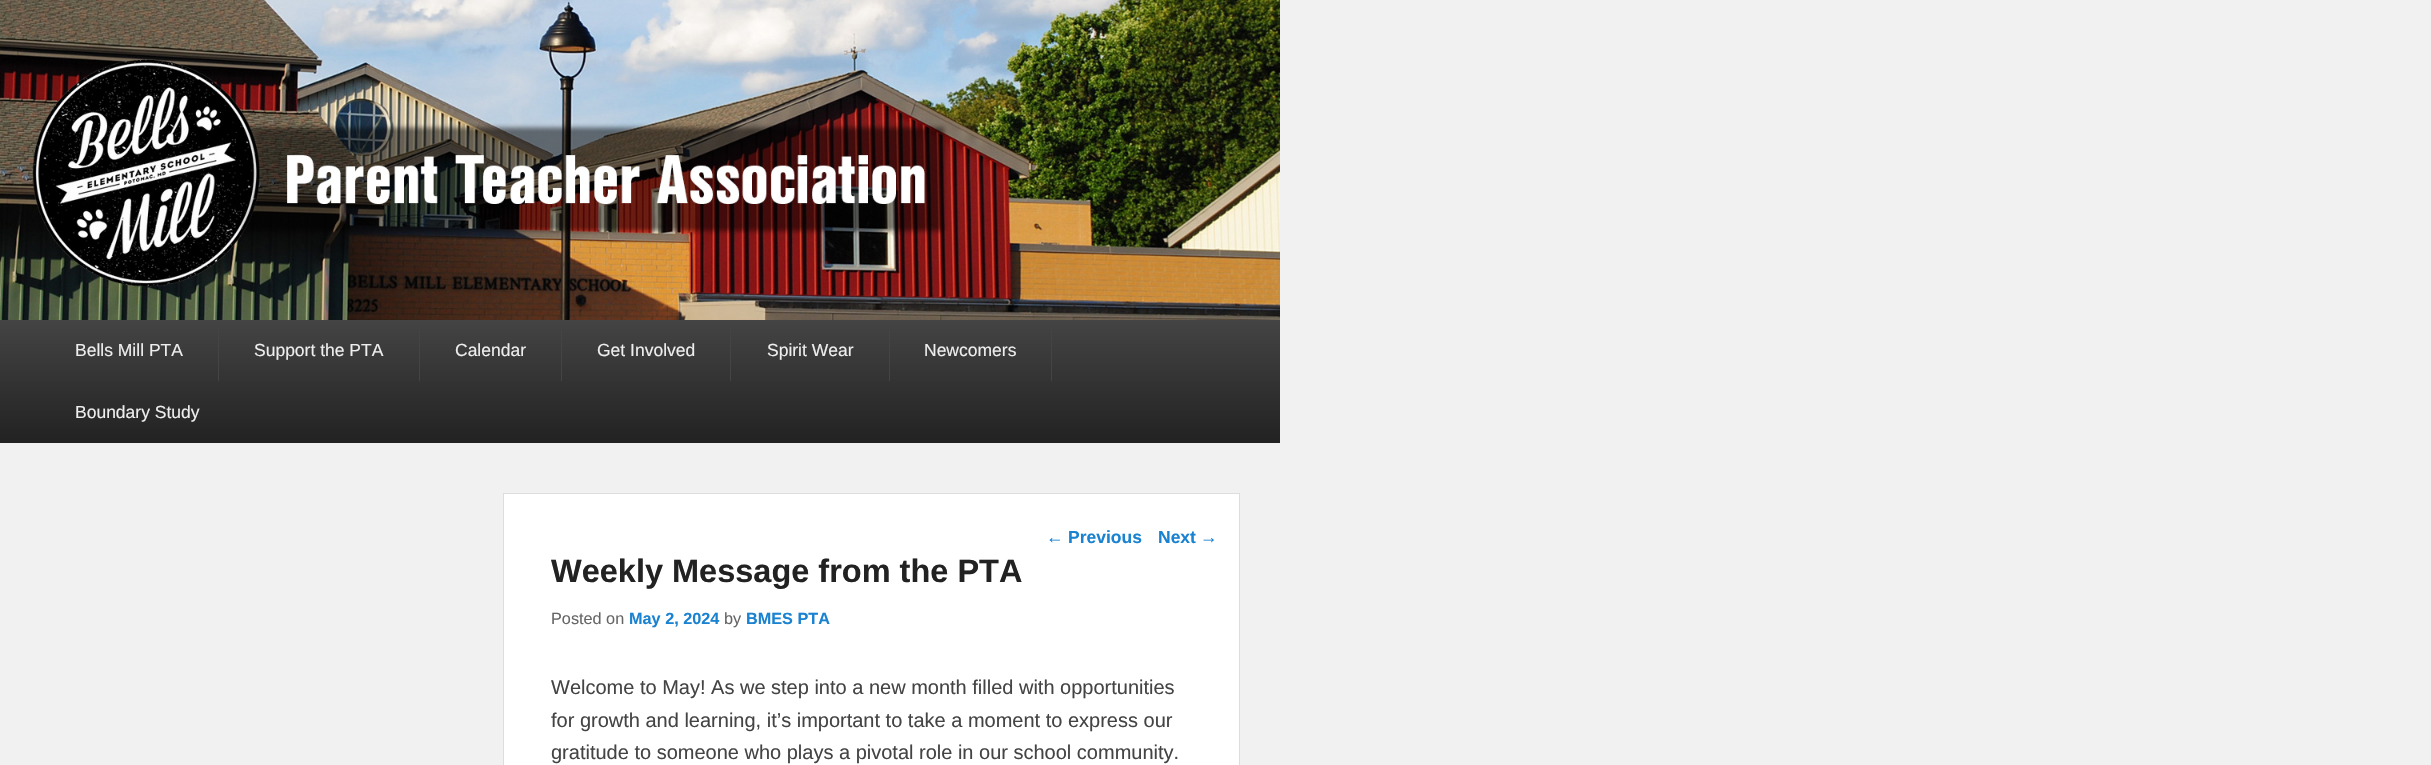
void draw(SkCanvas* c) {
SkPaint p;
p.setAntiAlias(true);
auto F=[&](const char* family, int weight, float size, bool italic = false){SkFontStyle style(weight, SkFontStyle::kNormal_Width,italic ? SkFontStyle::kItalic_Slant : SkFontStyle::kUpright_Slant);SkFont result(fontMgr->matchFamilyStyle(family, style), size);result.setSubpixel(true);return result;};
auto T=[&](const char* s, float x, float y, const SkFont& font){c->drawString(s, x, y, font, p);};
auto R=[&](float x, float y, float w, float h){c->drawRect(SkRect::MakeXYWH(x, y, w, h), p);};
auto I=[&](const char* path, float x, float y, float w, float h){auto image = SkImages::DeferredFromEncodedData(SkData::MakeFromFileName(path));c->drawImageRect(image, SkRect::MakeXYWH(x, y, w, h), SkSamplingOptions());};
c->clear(0xfff1f1f1);
I("1.png",0,0,1280,320);
{
const SkColor colors[] = {0xff444444,0xff222222};
const float stops[] = {0,1};
const SkPoint ends[] = {{640,320}, {640,443}};
p.setShader(SkGradientShader::MakeLinear(ends, colors, stops, 2, SkTileMode::kClamp));
p.setAlpha(255);
}
R(0,320,1280,123);
p.setShader(nullptr);
p.setColor(0xff444444);
R(218,329,1,52);
auto f1 = F("Liberation Sans",400,17.5);
p.setColor(0xffeeeeee);
T("Bells Mill PTA",75,356,f1);
p.setColor(0xff444444);
R(419,329,1,52);
p.setColor(0xffeeeeee);
T("Support the PTA",254,356,f1);
p.setColor(0xff444444);
R(561,329,1,52);
p.setColor(0xffeeeeee);
T("Calendar",455,356,f1);
p.setColor(0xff444444);
R(730,329,1,52);
p.setColor(0xffeeeeee);
T("Get Involved",597,356,f1);
p.setColor(0xff444444);
R(889,329,1,52);
p.setColor(0xffeeeeee);
T("Spirit Wear",767,356,f1);
p.setColor(0xff444444);
R(1051,329,1,52);
p.setColor(0xffeeeeee);
T("Newcomers",924,356,f1);
T("Boundary Study",75,418,f1);
p.setColor(0xffffffff);
c->drawRect(SkRect::MakeXYWH(503.5,493.5,736,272),p);
p.setStroke(true);
p.setStrokeWidth(1);
p.setColor(0xffdddddd);
c->drawRect(SkRect::MakeXYWH(503.5,493.5,736,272),p);
p.setStroke(false);
p.setColor(0xff1982d1);
T("←",1046,543,f1);
auto f2 = F("Liberation Sans",700,17.5);
T("Previous",1068,543,f2);
T("Next",1158,543,f2);
T("→",1200,543,f1);
auto f3 = F("Liberation Sans",700,32.5);
p.setColor(0xff222222);
T("Weekly Message from the PTA",551,582,f3);
auto f4 = F("Liberation Sans",400,16.25);
p.setColor(0xff666666);
T("Posted on",551,624,f4);
auto f5 = F("Liberation Sans",700,16.25);
p.setColor(0xff1982d1);
T("May 2, 2024",629,624,f5);
p.setColor(0xff666666);
T("by",724,624,f4);
p.setColor(0xff1982d1);
T("BMES PTA",746,624,f5);
auto f6 = F("Liberation Sans",400,20);
p.setColor(0xff444444);
T("Welcome to May! As we step into a new month filled with opportunities",551,694,f6);
T("for growth and learning, it’s important to take a moment to express our",551,727,f6);
T("gratitude to someone who plays a pivotal role in our school community.",551,759,f6);
}
